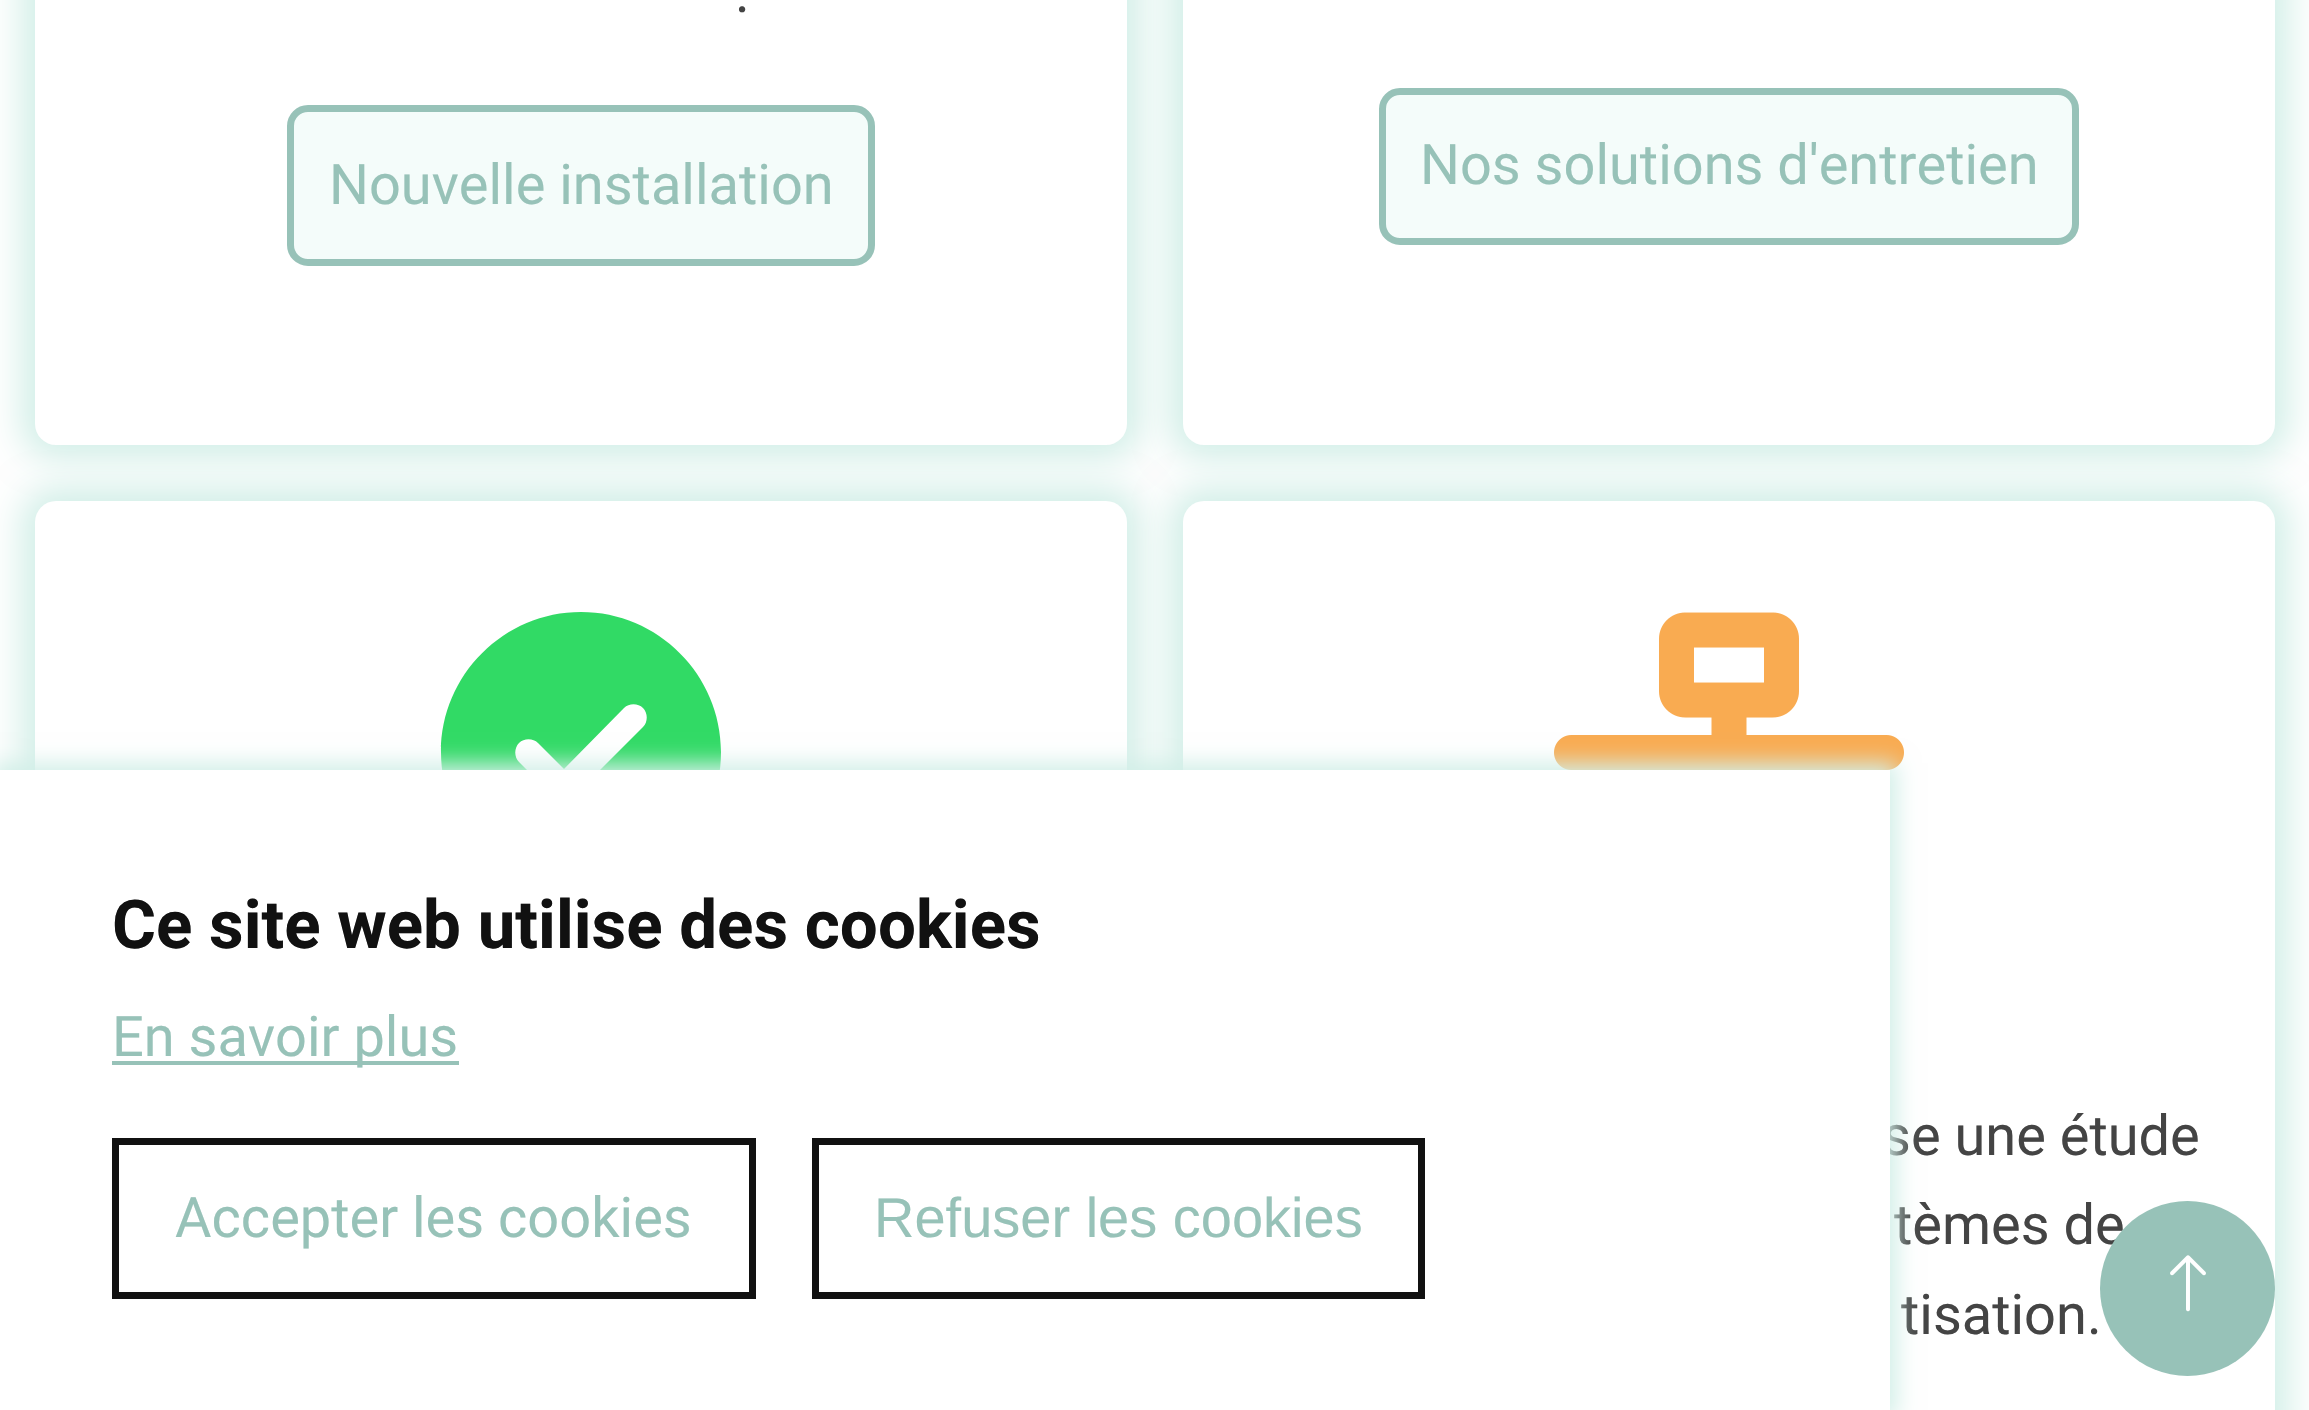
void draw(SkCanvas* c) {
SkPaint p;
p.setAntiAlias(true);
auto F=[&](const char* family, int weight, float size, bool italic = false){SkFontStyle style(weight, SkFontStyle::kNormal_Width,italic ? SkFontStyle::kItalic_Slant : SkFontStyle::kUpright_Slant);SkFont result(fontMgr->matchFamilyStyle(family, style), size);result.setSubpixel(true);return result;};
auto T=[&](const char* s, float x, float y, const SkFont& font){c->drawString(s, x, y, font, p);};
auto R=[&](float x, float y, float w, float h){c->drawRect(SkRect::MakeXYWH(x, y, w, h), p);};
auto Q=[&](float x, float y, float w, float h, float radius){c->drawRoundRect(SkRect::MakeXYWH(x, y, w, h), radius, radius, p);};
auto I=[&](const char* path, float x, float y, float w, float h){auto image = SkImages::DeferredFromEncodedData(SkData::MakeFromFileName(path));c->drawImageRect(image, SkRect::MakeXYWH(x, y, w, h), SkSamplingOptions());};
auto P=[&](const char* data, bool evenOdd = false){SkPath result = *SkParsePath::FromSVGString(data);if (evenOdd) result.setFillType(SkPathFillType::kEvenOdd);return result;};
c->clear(0xffffffff);
p.setColor(0xffd2efe8);
p.setMaskFilter(SkMaskFilter::MakeBlur(kNormal_SkBlurStyle, 17.5));
c->drawRoundRect(SkRect::MakeXYWH(21,-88,1120,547),35,35,p);
p.setMaskFilter(nullptr);
p.setColor(0xffffffff);
Q(35,-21,1092,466,21);
auto f1 = F("Roboto",400,56);
p.setColor(0xff444444);
T(".",735,12,f1);
p.setColor(0xfff4fcfa);
c->drawRoundRect(SkRect::MakeXYWH(290.5,108.5,581,154),17.5,17.5,p);
p.setStroke(true);
p.setStrokeWidth(7);
p.setColor(0xff97c2b8);
c->drawRoundRect(SkRect::MakeXYWH(290.5,108.5,581,154),17.5,17.5,p);
p.setStroke(false);
T("Nouvelle installation",329,204,f1);
p.setColor(0xffd2efe8);
p.setMaskFilter(SkMaskFilter::MakeBlur(kNormal_SkBlurStyle, 17.5));
c->drawRoundRect(SkRect::MakeXYWH(1169,-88,1120,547),35,35,p);
p.setMaskFilter(nullptr);
p.setColor(0xffffffff);
Q(1183,-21,1092,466,21);
p.setColor(0xfff4fcfa);
c->drawRoundRect(SkRect::MakeXYWH(1382.5,91.5,693,150),17.5,17.5,p);
p.setStroke(true);
p.setColor(0xff97c2b8);
c->drawRoundRect(SkRect::MakeXYWH(1382.5,91.5,693,150),17.5,17.5,p);
p.setStroke(false);
T("Nos solutions d'entretien",1420,184,f1);
p.setColor(0xffd2efe8);
p.setMaskFilter(SkMaskFilter::MakeBlur(kNormal_SkBlurStyle, 17.5));
c->drawRoundRect(SkRect::MakeXYWH(21,487,1120,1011),35,35,p);
p.setMaskFilter(nullptr);
p.setColor(0xffffffff);
Q(35,501,1092,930,21);
p.setColor(0xff31da65);
c->drawPath(P("M581 892c77 0 140-62 140-140c0-77-63-140-140-140c-77 0-140 63-140 140c0 78 63 140 140 140zm62-165l-70 70c-5 5-14 5-19 0l-35-35c-5-5-5-14 0-19c5-5 14-5 19 0l26 26l60-61c5-5 14-5 19 0c5 5 5 14 0 19z"),p);
p.setColor(0xffd2efe8);
p.setMaskFilter(SkMaskFilter::MakeBlur(kNormal_SkBlurStyle, 17.5));
c->drawRoundRect(SkRect::MakeXYWH(1169,487,1120,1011),35,35,p);
p.setMaskFilter(nullptr);
p.setColor(0xffffffff);
Q(1183,501,1092,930,21);
I("1.png",1554,612,350,158);
p.setColor(0xff444444);
T("se une étude",1882,1155,f1);
T("tèmes de",1894,1244,f1);
T("tisation.",1901,1334,f1);
p.setColor(0xff97c2b8);
c->drawCircle(2187.5,1288.5,87.5,p);
I("2.png",2170,1255,36,57);
p.setColor(0xffd2efe8);
p.setMaskFilter(SkMaskFilter::MakeBlur(kNormal_SkBlurStyle, 10.5));
c->drawRect(SkRect::MakeXYWH(-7,763,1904,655),p);
p.setMaskFilter(nullptr);
p.setColor(0xffffffff);
R(0,770,1890,640);
auto f2 = F("Roboto",700,67.25);
p.setColor(0xff111111);
T("Ce site web utilise des cookies",112,948,f2);
p.setColor(0xff97c2b8);
R(112,1061,347,4);
T("En savoir plus",112,1056,f1);
p.setStroke(true);
p.setColor(0xff111111);
c->drawRect(SkRect::MakeXYWH(115.5,1141.5,637,154),p);
p.setStroke(false);
p.setColor(0xff97c2b8);
T("Accepter les cookies",175,1237,f1);
p.setStroke(true);
p.setColor(0xff111111);
c->drawRect(SkRect::MakeXYWH(815.5,1141.5,606,154),p);
auto f3 = F("Liberation Sans",400,56);
p.setStroke(false);
p.setColor(0xff97c2b8);
T("Refuser les cookies",874,1237,f3);
}
